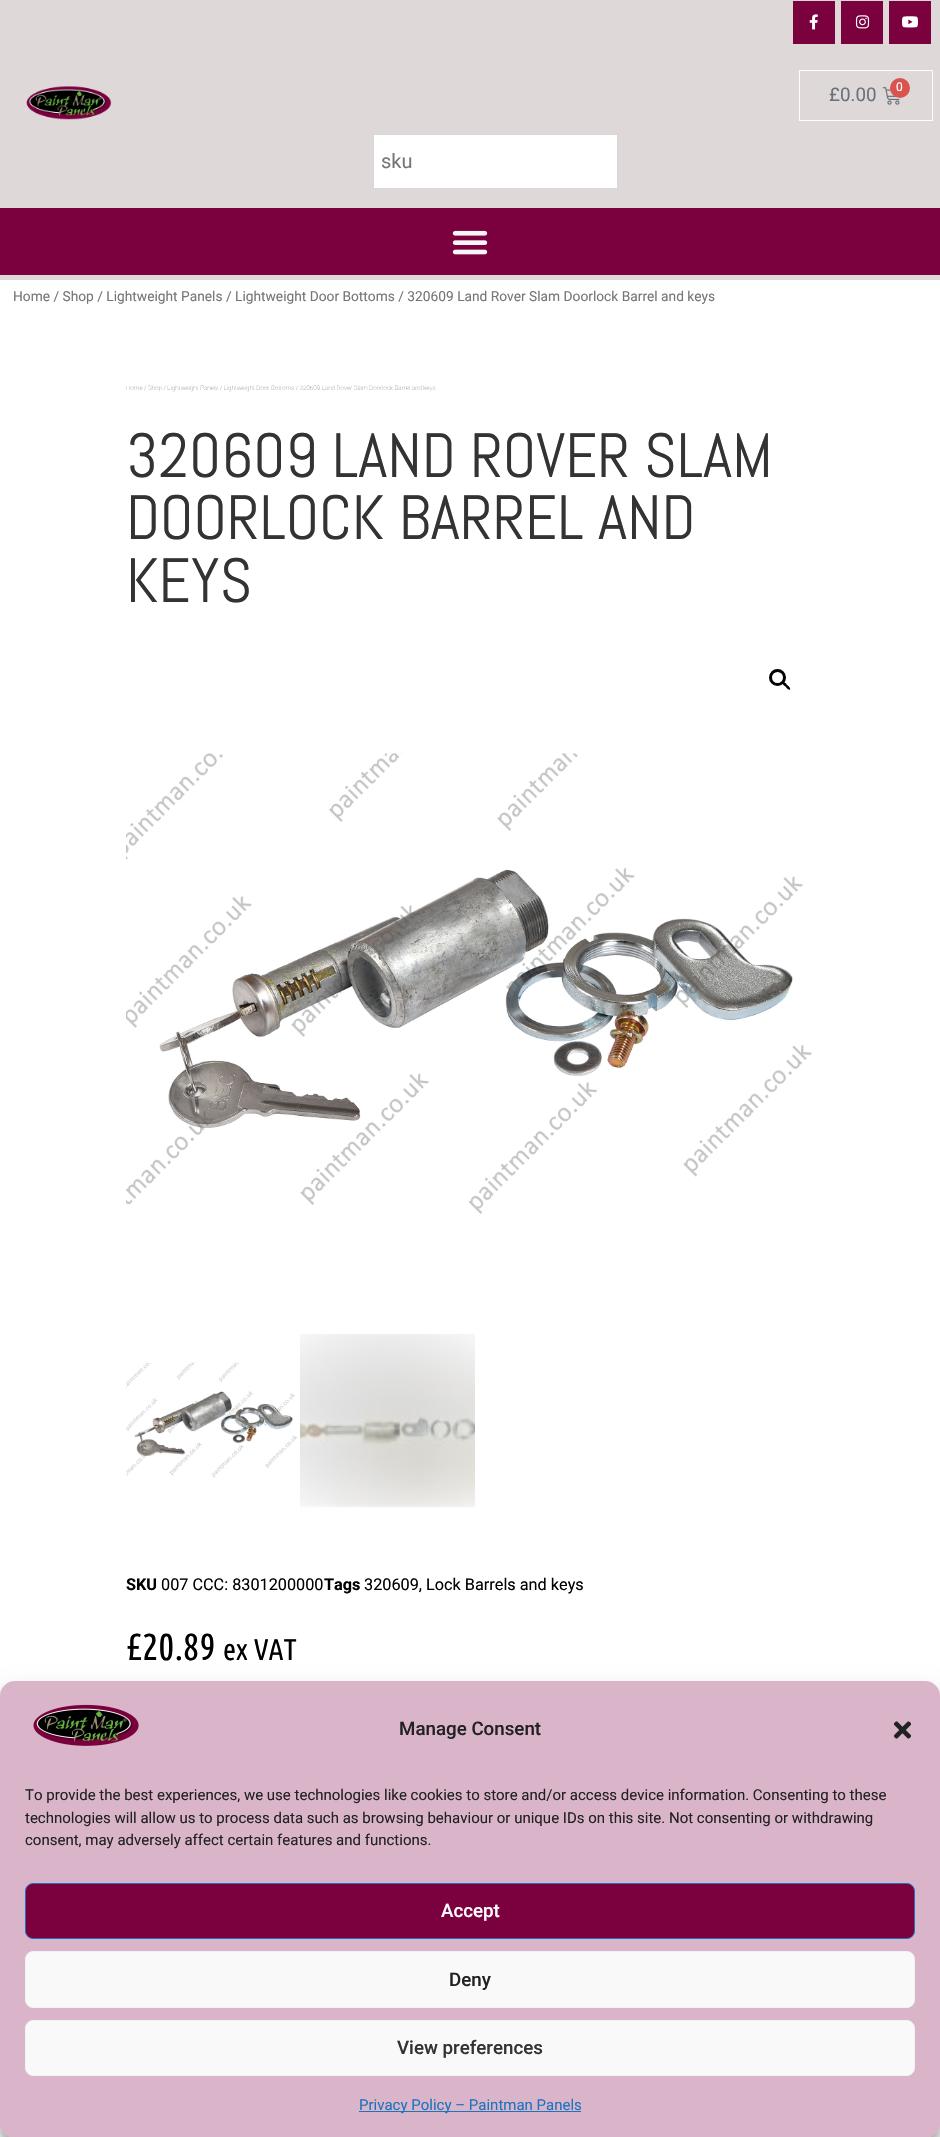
void draw(SkCanvas* c) {
SkPaint p;
p.setAntiAlias(true);
auto F=[&](const char* family, int weight, float size, bool italic = false){SkFontStyle style(weight, SkFontStyle::kNormal_Width,italic ? SkFontStyle::kItalic_Slant : SkFontStyle::kUpright_Slant);SkFont result(fontMgr->matchFamilyStyle(family, style), size);result.setSubpixel(true);return result;};
auto T=[&](const char* s, float x, float y, const SkFont& font){c->drawString(s, x, y, font, p);};
auto R=[&](float x, float y, float w, float h){c->drawRect(SkRect::MakeXYWH(x, y, w, h), p);};
auto Q=[&](float x, float y, float w, float h, float radius){c->drawRoundRect(SkRect::MakeXYWH(x, y, w, h), radius, radius, p);};
auto I=[&](const char* path, float x, float y, float w, float h){auto image = SkImages::DeferredFromEncodedData(SkData::MakeFromFileName(path));c->drawImageRect(image, SkRect::MakeXYWH(x, y, w, h), SkSamplingOptions());};
auto P=[&](const char* data, bool evenOdd = false){SkPath result = *SkParsePath::FromSVGString(data);if (evenOdd) result.setFillType(SkPathFillType::kEvenOdd);return result;};
c->clear(0xffffffff);
p.setColor(0xffdfd8d8);
R(0,0,940,280);
I("1.png",26,86,86,34);
p.setColor(0xff7b003e);
R(793,1,42,43);
I("2.png",809,14,9,16);
R(841,1,42,43);
I("3.png",855,15,15,14);
R(889,1,42,43);
I("4.png",902,16,16,12);
p.setStroke(true);
p.setStrokeWidth(1);
p.setColor(0xfffffdfd);
c->drawRect(SkRect::MakeXYWH(799.5,70.5,133,50),p);
auto f1 = F("Roboto",400,18.75);
p.setStroke(false);
p.setColor(0xff69727d);
T("£0.00",829,101,f1);
I("5.png",882,87,18,18);
p.setColor(0xffd9534f);
c->drawCircle(900,88,10,p);
auto f2 = F("Roboto",400,12);
p.setColor(0xffffffff);
T("0",896,91,f2);
c->drawRect(SkRect::MakeXYWH(373.5,134.5,244,54),p);
p.setStroke(true);
p.setColor(0xffd8d8d8);
c->drawRect(SkRect::MakeXYWH(373.5,134.5,244,54),p);
auto f3 = F("Roboto",400,20);
p.setStroke(false);
p.setColor(0xff767676);
T("sku",381,168,f3);
p.setColor(0xff7b003e);
R(0,208,940,67);
I("6.png",452,230,36,25);
auto f4 = F("Roboto",400,13.75);
p.setColor(0xff767676);
T("Home / Shop / Lightweight Panels / Lightweight Door Bottoms / 320609 Land Rover Slam Doorlock Barrel and keys",13,301,f4);
auto f5 = F("Roboto",100,6.25);
T("Home / Shop / Lightweight Panels / Lightweight Door Bottoms / 320609 Land Rover Slam Doorlock Barrel and keys",126,390,f5);
auto f6 = F("Abel",400,62.5);
p.setColor(0xff333333);
T("320609 LAND ROVER SLAM",126,477,f6);
T("DOORLOCK BARREL AND",126,539,f6);
T("KEYS",126,602,f6);
p.setStroke(true);
p.setStrokeWidth(3);
p.setColor(0xff000000);
c->drawCircle(777.5,677.5,7,p);
p.setStroke(false);
c->drawPath(P("M782.5 682c1.5-1 4 2 4.5 3c1 .5 4 3 3 4.5c-1.5 1-4-2-4.5-3c-1-.5-4-3-3-4.5z"),p);
I("7.png",126,753,686,461);
I("8.png",126,1362,172,116);
I("9.png",300,1334,175,174);
auto f7 = F("Roboto",700,16.25);
T("SKU",126,1590,f7);
auto f8 = F("Roboto",400,16.25);
T("007 CCC: 8301200000",161,1590,f8);
T("Tags",324,1590,f7);
T("320609, Lock Barrels and keys",364,1590,f8);
auto f9 = F("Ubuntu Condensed",400,37.5);
T("£20.89",126,1660,f9);
auto f10 = F("Ubuntu Condensed",400,30);
T("ex VAT",223,1660,f10);
p.setColor(0x3b000000);
p.setMaskFilter(SkMaskFilter::MakeBlur(kNormal_SkBlurStyle, 4));
c->drawRoundRect(SkRect::MakeXYWH(0,1689,940,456),15,15,p);
p.setMaskFilter(nullptr);
p.setColor(0x30000000);
p.setMaskFilter(SkMaskFilter::MakeBlur(kNormal_SkBlurStyle, 12.5));
c->drawRoundRect(SkRect::MakeXYWH(0,1694,940,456),15,15,p);
p.setMaskFilter(nullptr);
p.setColor(0xffdab5ca);
Q(0,1681,940,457,15);
I("10.png",33,1704,106,42);
auto f11 = F("Roboto",500,18.75);
p.setColor(0xff222222);
T("Manage Consent",399,1735,f11);
I("11.png",893,1721,19,18);
auto f12 = F("Roboto",400,15);
T("To provide the best experiences, we use technologies like cookies to store and/or access device information. Consenting to these",25,1800,f12);
T("technologies will allow us to process data such as browsing behaviour or unique IDs on this site. Not consenting or withdrawing",25,1823,f12);
T("consent, may adversely affect certain features and functions.",25,1845,f12);
p.setColor(0xff7b003e);
c->drawRoundRect(SkRect::MakeXYWH(25.5,1883.5,889,55),7.5,7.5,p);
p.setStroke(true);
p.setStrokeWidth(1);
p.setColor(0xff1e73be);
c->drawRoundRect(SkRect::MakeXYWH(25.5,1883.5,889,55),7.5,7.5,p);
p.setStroke(false);
p.setColor(0xffffffff);
T("Accept",441,1917,f11);
p.setColor(0xfff9f9f9);
c->drawRoundRect(SkRect::MakeXYWH(25.5,1951.5,889,56),7.5,7.5,p);
p.setStroke(true);
p.setColor(0xfff2f2f2);
c->drawRoundRect(SkRect::MakeXYWH(25.5,1951.5,889,56),7.5,7.5,p);
p.setStroke(false);
p.setColor(0xff222222);
T("Deny",449,1986,f11);
p.setColor(0xfff9f9f9);
c->drawRoundRect(SkRect::MakeXYWH(25.5,2020.5,889,55),7.5,7.5,p);
p.setStroke(true);
p.setColor(0xfff2f2f2);
c->drawRoundRect(SkRect::MakeXYWH(25.5,2020.5,889,55),7.5,7.5,p);
p.setStroke(false);
p.setColor(0xff333333);
T("View preferences",397,2054,f11);
p.setColor(0xff1e73be);
R(359,2111,222,1);
T("Privacy Policy – Paintman Panels",359,2110,f12);
}
